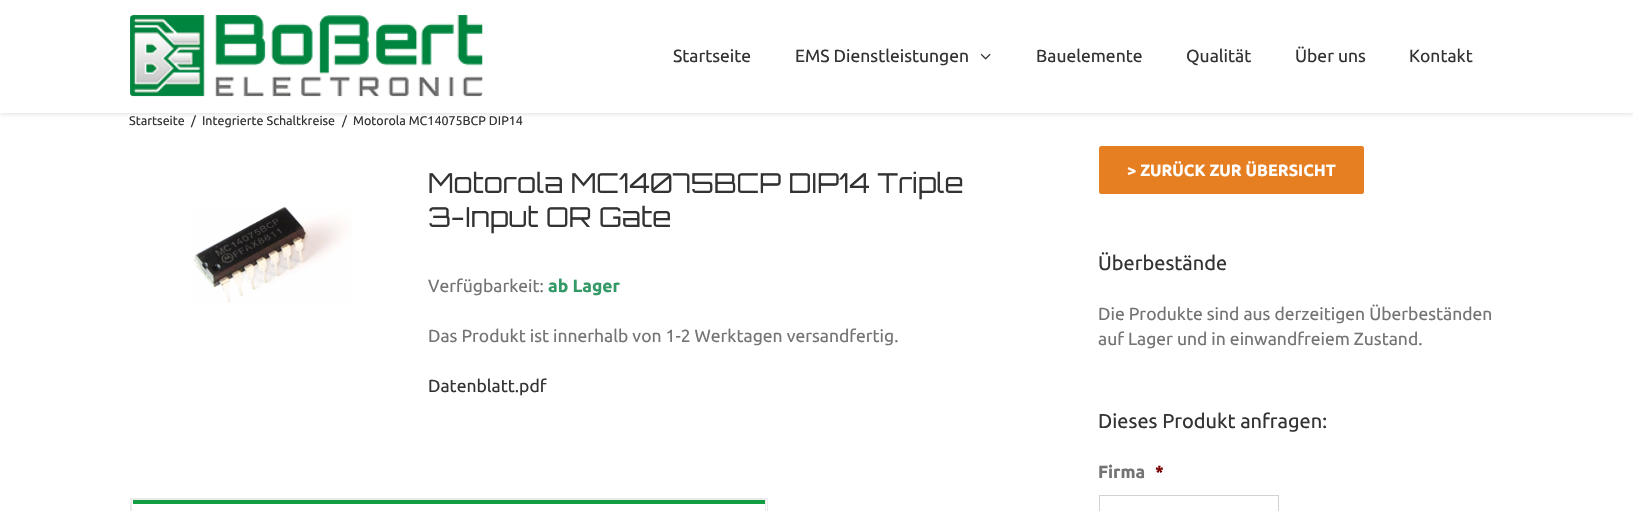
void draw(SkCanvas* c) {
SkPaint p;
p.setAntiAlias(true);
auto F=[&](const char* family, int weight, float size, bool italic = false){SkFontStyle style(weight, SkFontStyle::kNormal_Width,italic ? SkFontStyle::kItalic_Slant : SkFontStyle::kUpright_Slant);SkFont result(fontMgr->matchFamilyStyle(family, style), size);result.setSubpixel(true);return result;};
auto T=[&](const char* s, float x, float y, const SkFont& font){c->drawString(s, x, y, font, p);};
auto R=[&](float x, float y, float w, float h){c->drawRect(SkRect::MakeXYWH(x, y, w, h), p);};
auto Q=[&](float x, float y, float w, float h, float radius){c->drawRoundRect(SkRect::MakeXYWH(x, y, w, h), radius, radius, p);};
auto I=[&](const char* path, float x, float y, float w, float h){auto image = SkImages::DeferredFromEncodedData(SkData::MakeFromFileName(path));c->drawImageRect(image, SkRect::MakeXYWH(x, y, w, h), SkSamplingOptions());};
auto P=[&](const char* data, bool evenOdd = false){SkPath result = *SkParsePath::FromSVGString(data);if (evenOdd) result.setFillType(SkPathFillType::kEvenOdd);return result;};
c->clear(0xffffffff);
c->save();
c->clipPath(P("M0 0h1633v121h-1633zm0 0h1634v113h-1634z",true),true);
p.setColor(0x1f000000);
p.setMaskFilter(SkMaskFilter::MakeBlur(kNormal_SkBlurStyle, 2));
c->drawRect(SkRect::MakeXYWH(0,1,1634,113),p);
p.setMaskFilter(nullptr);
c->restore();
p.setColor(0xf7ffffff);
R(0,112,1633,1);
I("1.png",130,15,353,82);
auto f1 = F("Ubuntu",400,17.5);
p.setColor(0xff333333);
T("Startseite",673,62,f1);
T("EMS Dienstleistungen",795,62,f1);
I("2.png",980,53,11,7);
T("Bauelemente",1036,62,f1);
T("Qualität",1186,62,f1);
T("Über uns",1295,62,f1);
T("Kontakt",1409,62,f1);
auto f2 = F("Ubuntu",400,12.5);
T("Startseite",129,125,f2);
T("/",191,125,f2);
T("Integrierte Schaltkreise",202,125,f2);
T("/",342,125,f2);
T("Motorola MC14075BCP DIP14",353,125,f2);
I("3.png",193,206,159,97);
auto f3 = F("Orbitron",400,27.5);
T("Motorola MC14075BCP DIP14 Triple",428,193,f3);
T("3-Input OR Gate",428,227,f3);
p.setColor(0xff747474);
T("Verfügbarkeit:",428,292,f1);
auto f4 = F("Ubuntu",700,17.5);
p.setColor(0xff339966);
T("ab Lager",548,292,f4);
p.setColor(0xff747474);
T("Das Produkt ist innerhalb von 1-2 Werktagen versandfertig.",428,342,f1);
p.setColor(0xff333333);
T("Datenblatt.pdf",428,392,f1);
p.setStroke(true);
p.setStrokeWidth(1);
p.setColor(0xffebeaea);
c->drawRect(SkRect::MakeXYWH(130.5,498.5,637,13),p);
p.setStroke(false);
R(131,499,635,1);
R(765,499,1,12);
R(131,499,1,12);
p.setColor(0xff129d42);
R(133,500,632,4);
p.setColor(0xffe67e22);
Q(1099,146,265,48,2.5);
auto f5 = F("Ubuntu",700,16.25);
p.setColor(0xffffffff);
T("> ZURÜCK ZUR ÜBERSICHT",1127,176,f5);
auto f6 = F("Ubuntu",400,20);
p.setColor(0xff333333);
T("Überbestände",1098,270,f6);
p.setColor(0xff747474);
T("Die Produkte sind aus derzeitigen Überbeständen",1098,320,f1);
T("auf Lager und in einwandfreiem Zustand.",1098,345,f1);
p.setColor(0xff333333);
T("Dieses Produkt anfragen:",1098,428,f6);
p.setColor(0xff747474);
T("Firma",1098,478,f4);
p.setColor(0xff790000);
T("*",1155,478,f4);
p.setStroke(true);
p.setColor(0xffd2d2d2);
c->drawRect(SkRect::MakeXYWH(1099.5,495.5,179,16),p);
}
